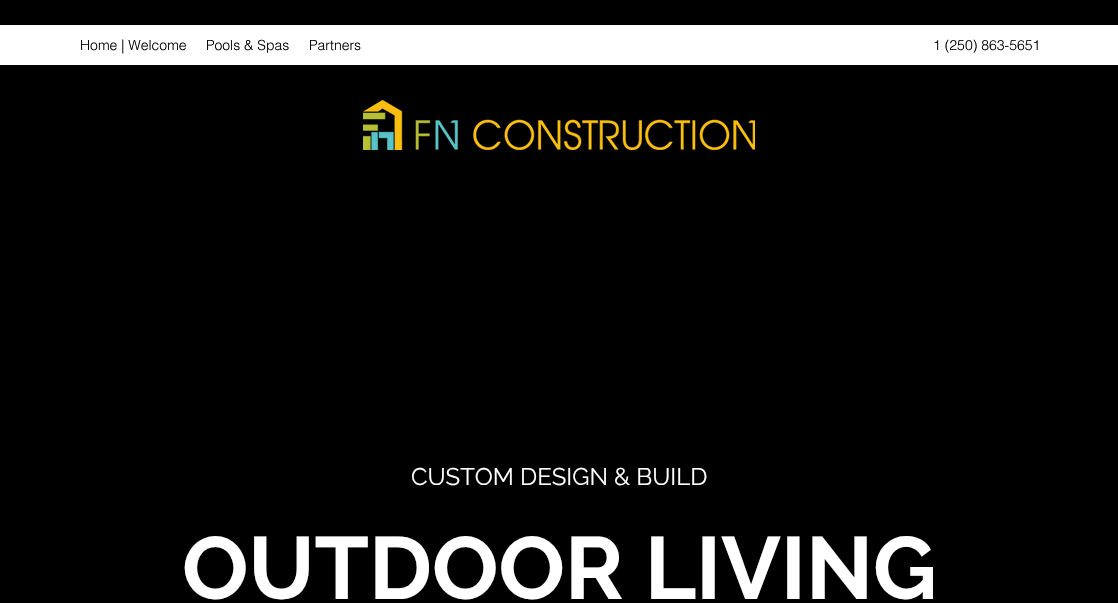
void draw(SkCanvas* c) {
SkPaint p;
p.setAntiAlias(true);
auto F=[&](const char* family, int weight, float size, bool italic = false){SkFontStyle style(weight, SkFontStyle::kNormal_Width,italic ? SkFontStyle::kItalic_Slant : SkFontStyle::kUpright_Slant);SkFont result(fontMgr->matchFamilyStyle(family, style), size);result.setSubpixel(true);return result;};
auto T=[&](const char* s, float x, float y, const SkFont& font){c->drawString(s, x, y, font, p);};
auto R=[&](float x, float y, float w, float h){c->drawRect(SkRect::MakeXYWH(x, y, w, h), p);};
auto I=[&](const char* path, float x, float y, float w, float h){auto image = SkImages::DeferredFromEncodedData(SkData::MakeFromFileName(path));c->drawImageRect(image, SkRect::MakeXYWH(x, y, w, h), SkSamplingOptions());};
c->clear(0xff000000);
p.setColor(0xffffffff);
R(0,25,1118,40);
auto f1 = F("helvetica",300,14);
p.setColor(0xff000000);
T("Home | Welcome",80,50,f1);
T("Pools & Spas",206,50,f1);
T("Partners",309,50,f1);
T("1 (250) 863-5651",933,50,f1);
I("1.png",363,100,392,50);
auto f2 = F("Raleway",400,24);
p.setColor(0xffffffff);
T("CUSTOM DESIGN & BUILD",411,485,f2);
auto f3 = F("Raleway",700,88);
T("OUTDOOR LIVING",182,599,f3);
}
